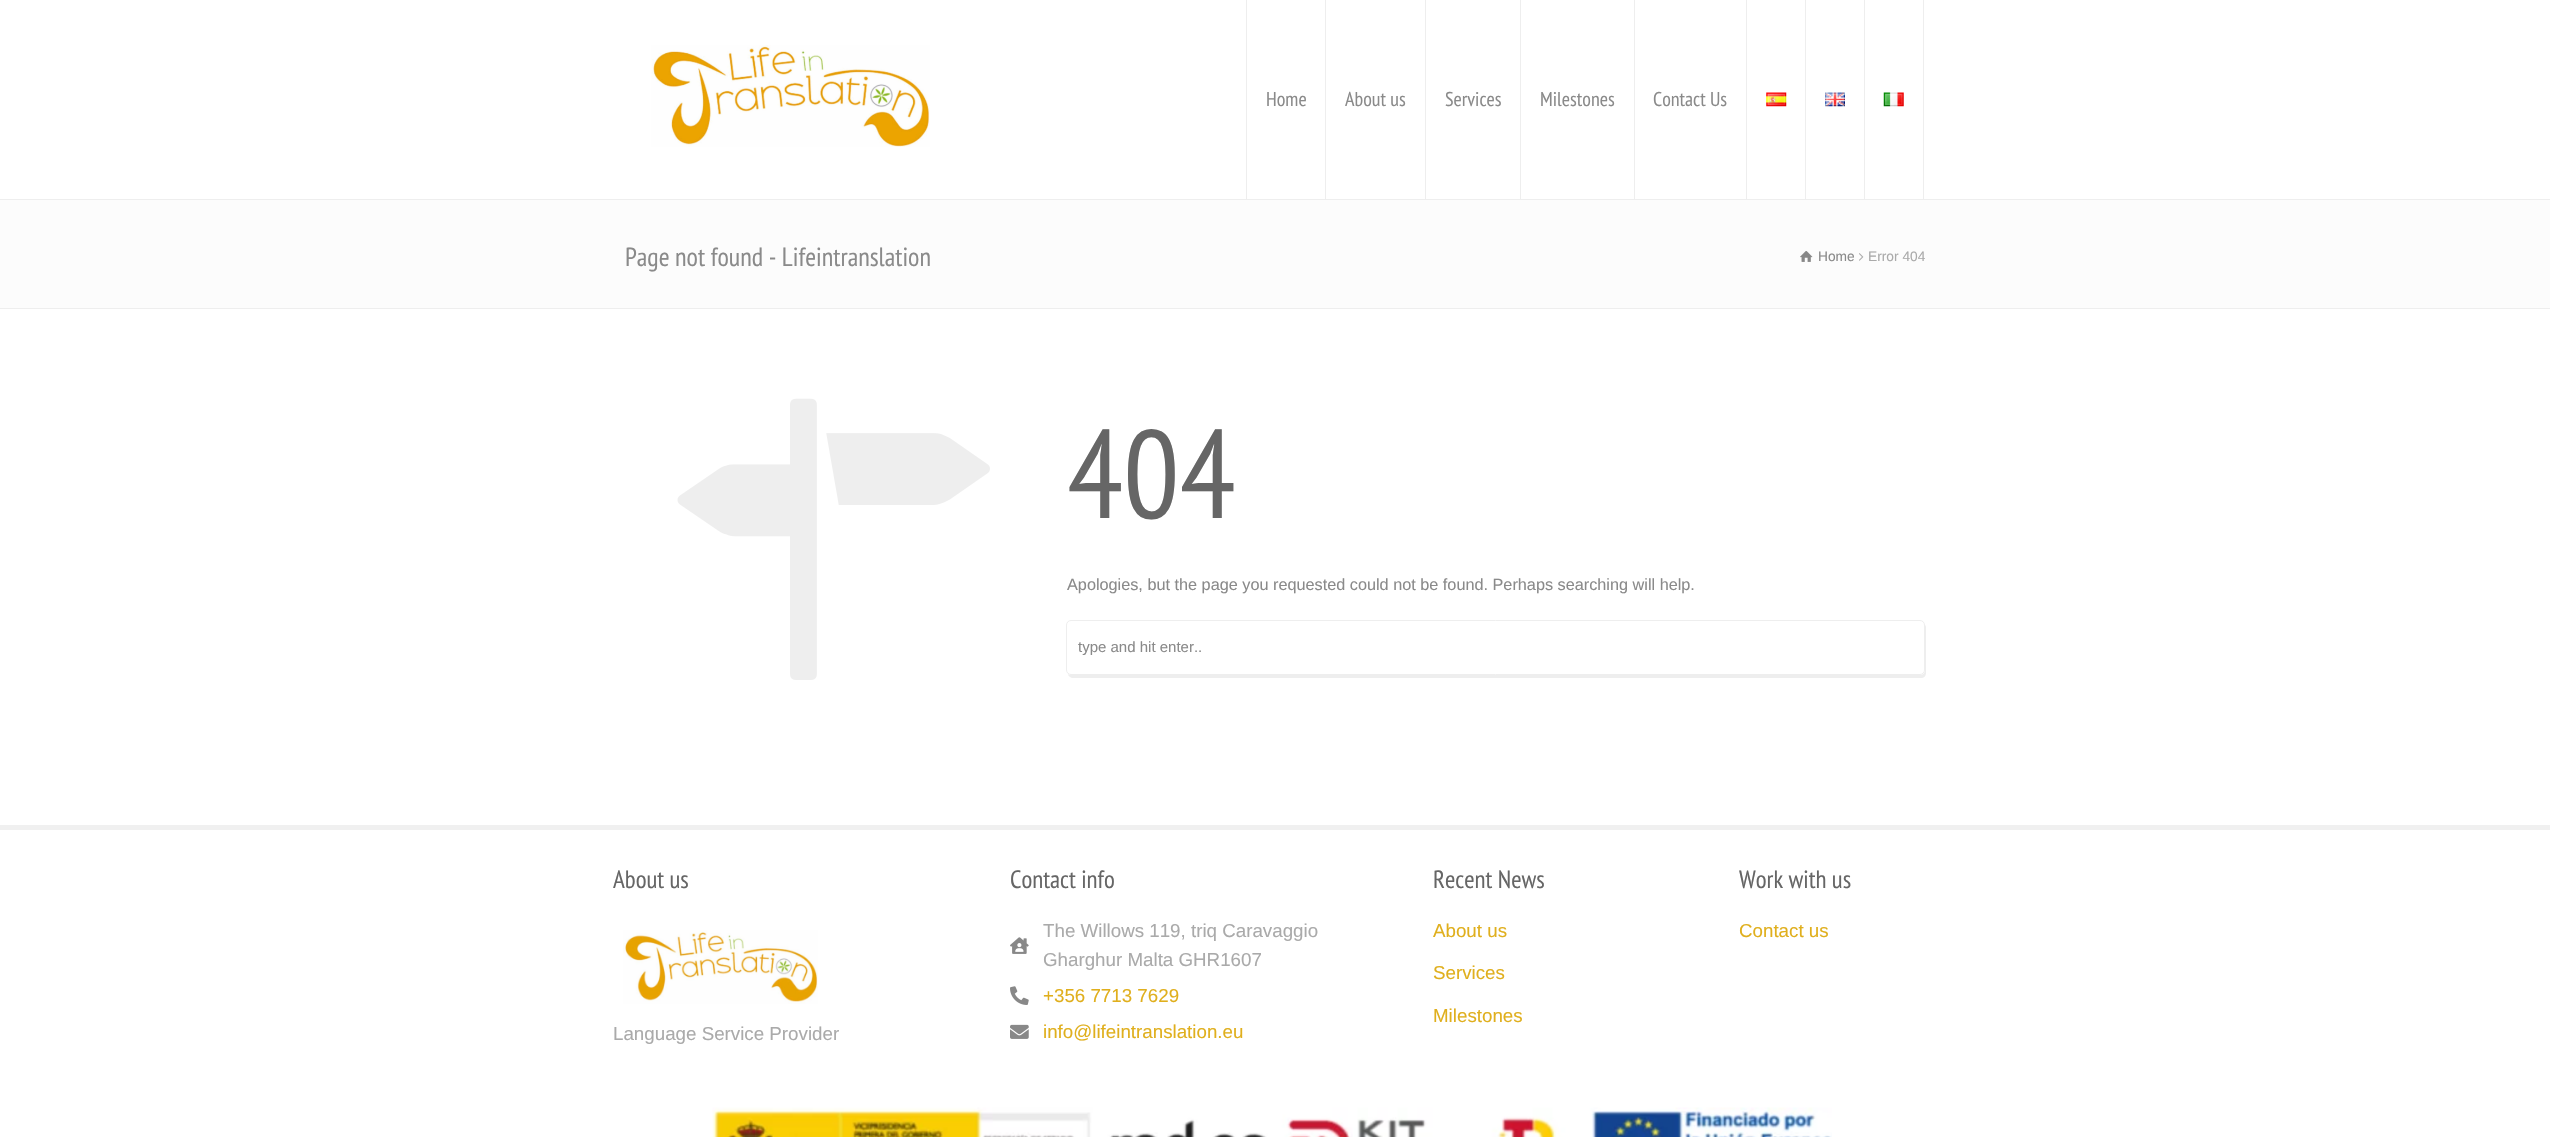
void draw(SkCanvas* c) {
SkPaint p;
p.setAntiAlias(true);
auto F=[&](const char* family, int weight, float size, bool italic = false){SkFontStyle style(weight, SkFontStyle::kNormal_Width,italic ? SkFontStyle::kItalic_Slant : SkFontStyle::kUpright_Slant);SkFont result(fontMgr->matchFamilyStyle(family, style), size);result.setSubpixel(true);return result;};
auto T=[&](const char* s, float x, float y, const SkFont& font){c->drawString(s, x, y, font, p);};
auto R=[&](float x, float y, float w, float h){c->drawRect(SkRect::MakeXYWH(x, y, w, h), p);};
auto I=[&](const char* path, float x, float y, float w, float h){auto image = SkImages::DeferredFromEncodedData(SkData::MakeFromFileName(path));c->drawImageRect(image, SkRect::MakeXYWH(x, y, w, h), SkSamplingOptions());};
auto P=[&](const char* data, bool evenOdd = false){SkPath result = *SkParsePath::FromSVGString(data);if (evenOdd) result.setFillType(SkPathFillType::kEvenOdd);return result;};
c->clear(0xffffffff);
I("1.png",651,45,279,102);
p.setColor(0xffeeeeee);
R(1325,0,1,199);
R(1246,0,1,199);
auto f1 = F("PT Sans Narrow",400,20);
p.setColor(0xff8a8a8a);
T("Home",1266,106,f1);
p.setColor(0xffeeeeee);
R(1425,0,1,199);
p.setColor(0xff8a8a8a);
T("About us",1345,106,f1);
p.setColor(0xffeeeeee);
R(1520,0,1,199);
p.setColor(0xff8a8a8a);
T("Services",1445,106,f1);
p.setColor(0xffeeeeee);
R(1634,0,1,199);
p.setColor(0xff8a8a8a);
T("Milestones",1540,106,f1);
p.setColor(0xffeeeeee);
R(1746,0,1,199);
p.setColor(0xff8a8a8a);
T("Contact Us",1653,106,f1);
p.setColor(0xffeeeeee);
R(1805,0,1,199);
I("2.png",1766,92,21,15);
R(1864,0,1,199);
I("3.png",1825,92,20,15);
R(1923,0,1,199);
I("4.png",1883,92,21,15);
p.setColor(0xfffcfcfc);
R(0,200,2550,108);
p.setColor(0xffeeeeee);
R(0,199,2550,1);
R(0,308,2550,1);
auto f2 = F("PT Sans Narrow",400,26.25);
p.setColor(0xff8a8a8a);
T("Page not found - Lifeintranslation",625,266,f2);
I("5.png",1800,251,13,11);
auto f3 = F("Liberation Sans",400,13.75);
T("Home",1818,261,f3);
I("6.png",1859,253,5,8);
p.setColor(0xffaaaaaa);
T("Error 404",1868,261,f3);
I("7.png",677,398,313,282);
auto f4 = F("PT Sans Narrow",400,125);
p.setColor(0xff666666);
T("404",1067,518,f4);
auto f5 = F("Liberation Sans",400,16.25);
p.setColor(0xff8a8a8a);
T("Apologies, but the page you requested could not be found. Perhaps searching will help.",1067,590,f5);
p.setColor(0xffeeeeee);
c->drawPath(P("M1068 674c0 2 3 4 5 4h848c3 0 5-2 5-5v-45c0-1 0-2-1-3v45c0 3-2 5-5 5h-849c-1 0-2 0-3-1z"),p);
p.setColor(0xffffffff);
c->drawRoundRect(SkRect::MakeXYWH(1066.5,620.5,858,54),4.5,4.5,p);
p.setStroke(true);
p.setStrokeWidth(1);
p.setColor(0xffeeeeee);
c->drawRoundRect(SkRect::MakeXYWH(1066.5,620.5,858,54),4.5,4.5,p);
auto f6 = F("Liberation Sans",400,15);
p.setStroke(false);
p.setColor(0xff8a8a8a);
T("type and hit enter..",1078,652,f6);
p.setColor(0xfff0f0f0);
R(0,825,2550,5);
auto f7 = F("PT Sans Narrow",400,25);
p.setColor(0xff666666);
T("About us",613,888,f7);
I("8.png",623,930,195,74);
auto f8 = F("Liberation Sans",400,18.75);
p.setColor(0xffaaaaaa);
T("Language Service Provider",613,1040,f8);
p.setColor(0xff666666);
T("Contact info",1010,888,f7);
I("9.png",1010,937,19,17);
p.setColor(0xffaaaaaa);
T("The Willows 119, triq Caravaggio",1043,937,f8);
T("Gharghur Malta GHR1607",1043,966,f8);
I("10.png",1010,986,19,19);
p.setColor(0xffe0af1d);
T("+356 7713 7629",1043,1002,f8);
I("11.png",1010,1024,19,15);
T("info@lifeintranslation.eu",1043,1038,f8);
p.setColor(0xff666666);
T("Recent News",1433,888,f7);
p.setColor(0xffe0af1d);
T("About us",1433,937,f8);
T("Services",1433,979,f8);
T("Milestones",1433,1022,f8);
p.setColor(0xff666666);
T("Work with us",1739,888,f7);
p.setColor(0xffe0af1d);
T("Contact us",1739,937,f8);
I("12.png",712,1107,1120,30);
}
